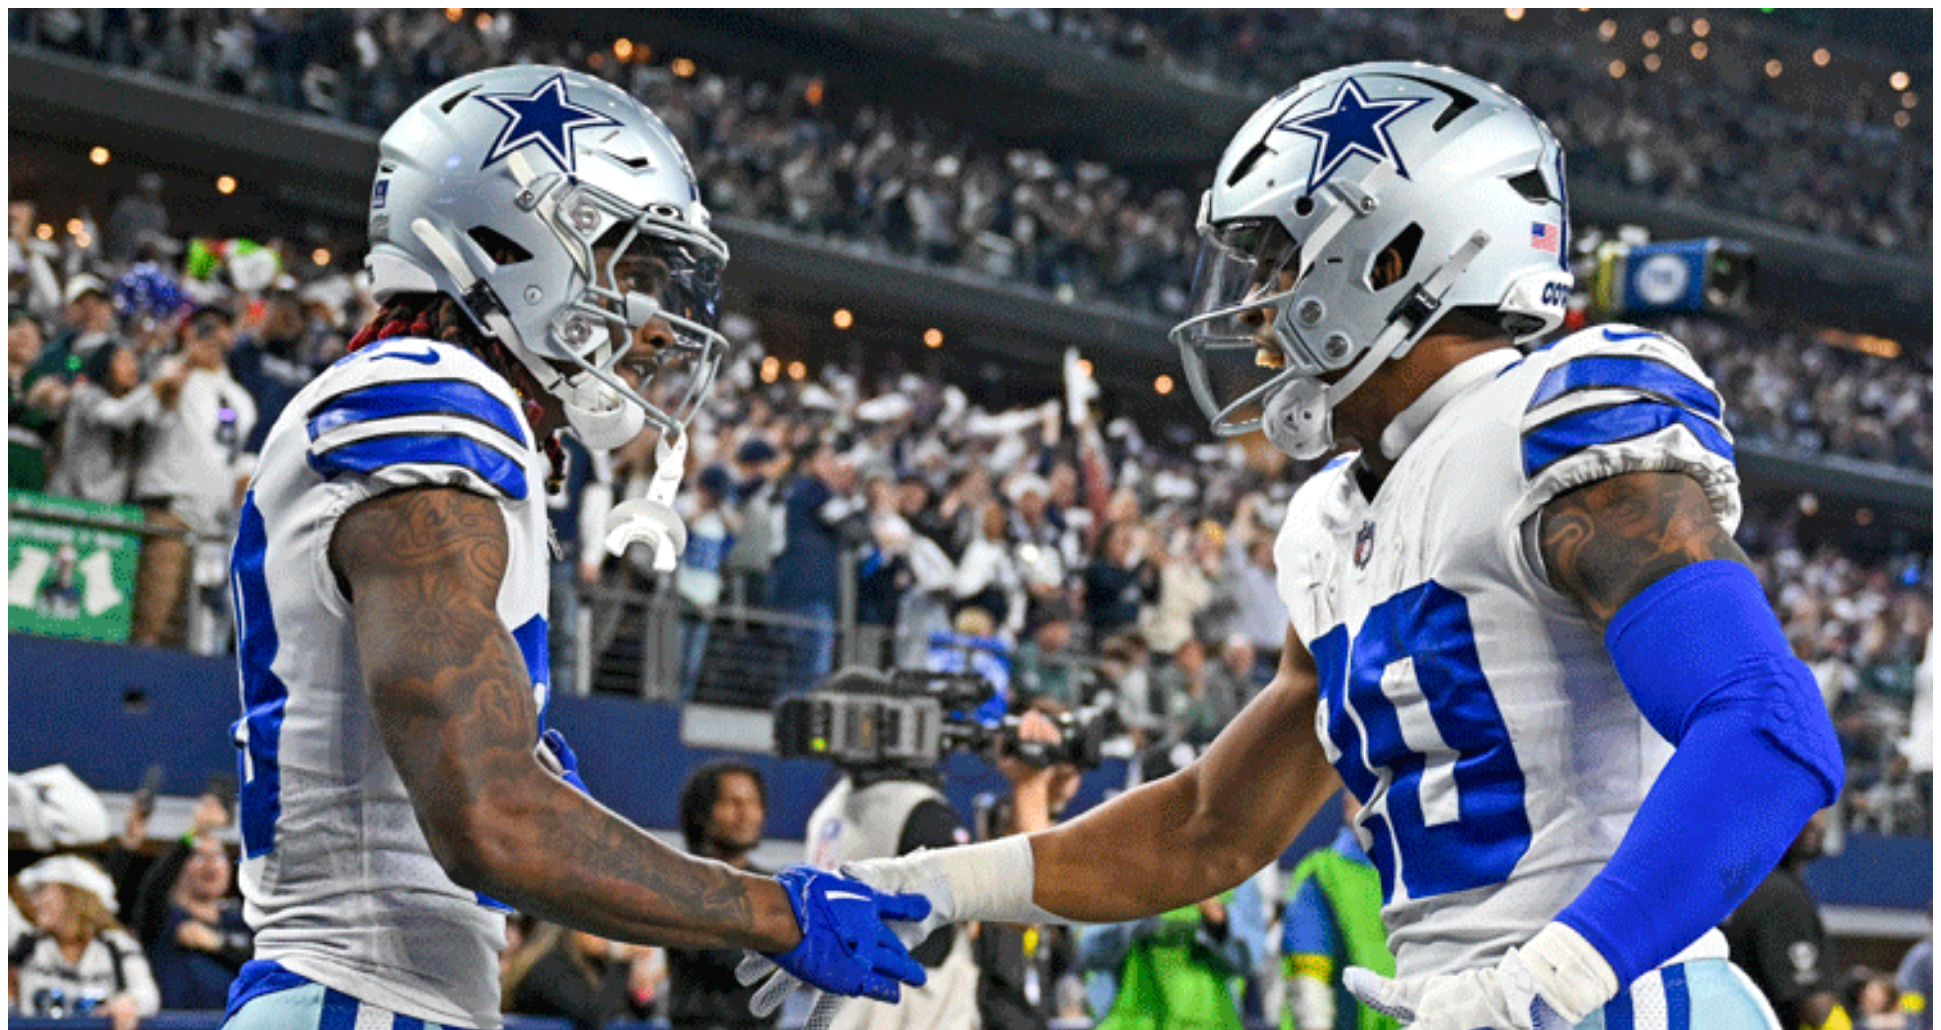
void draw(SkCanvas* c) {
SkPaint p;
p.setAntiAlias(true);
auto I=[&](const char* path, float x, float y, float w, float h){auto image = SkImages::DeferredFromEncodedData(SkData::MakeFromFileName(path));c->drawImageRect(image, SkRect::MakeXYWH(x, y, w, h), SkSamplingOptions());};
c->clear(0xffffffff);
I("1.png",8,8,1925,1022);
}
